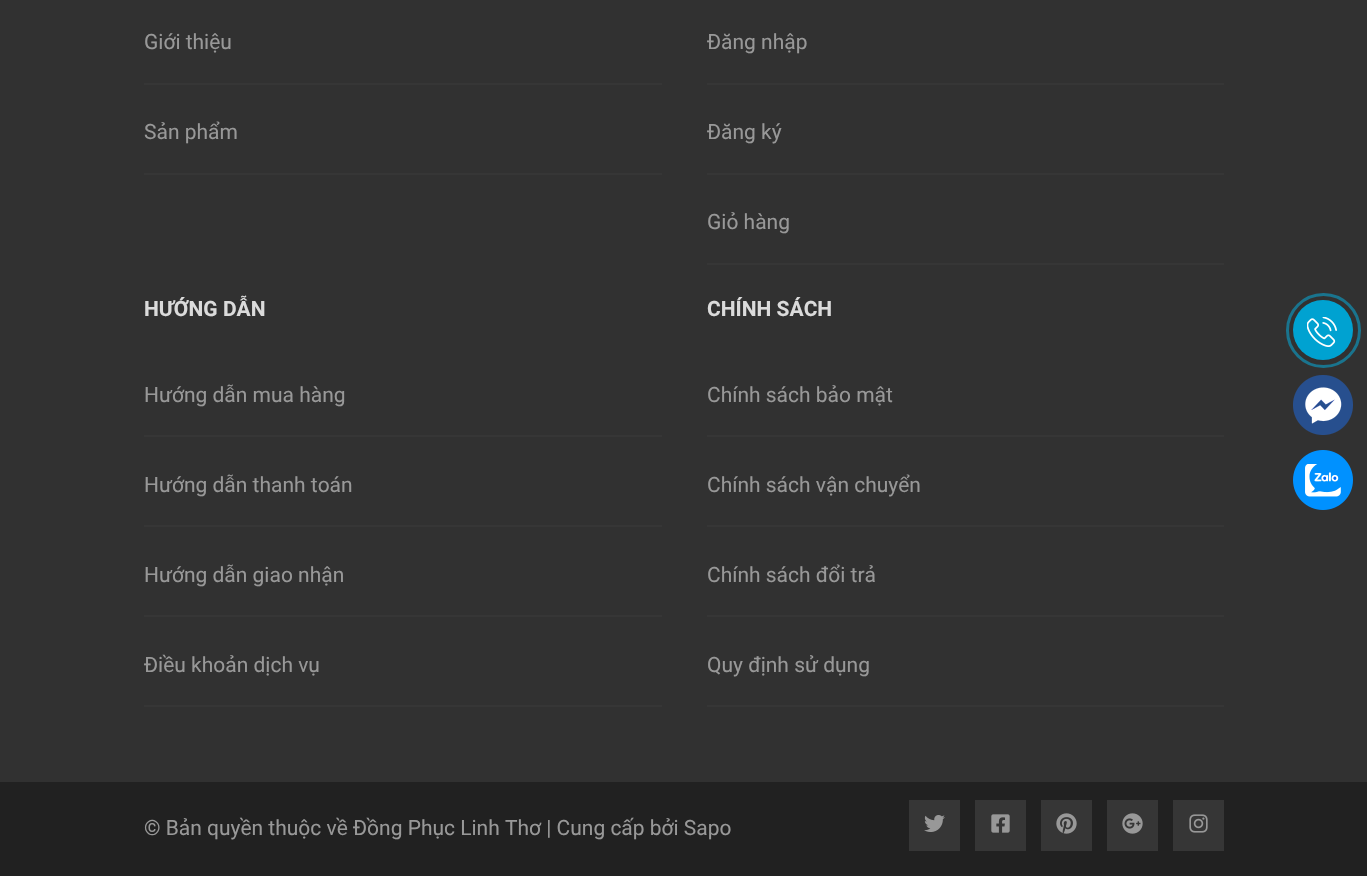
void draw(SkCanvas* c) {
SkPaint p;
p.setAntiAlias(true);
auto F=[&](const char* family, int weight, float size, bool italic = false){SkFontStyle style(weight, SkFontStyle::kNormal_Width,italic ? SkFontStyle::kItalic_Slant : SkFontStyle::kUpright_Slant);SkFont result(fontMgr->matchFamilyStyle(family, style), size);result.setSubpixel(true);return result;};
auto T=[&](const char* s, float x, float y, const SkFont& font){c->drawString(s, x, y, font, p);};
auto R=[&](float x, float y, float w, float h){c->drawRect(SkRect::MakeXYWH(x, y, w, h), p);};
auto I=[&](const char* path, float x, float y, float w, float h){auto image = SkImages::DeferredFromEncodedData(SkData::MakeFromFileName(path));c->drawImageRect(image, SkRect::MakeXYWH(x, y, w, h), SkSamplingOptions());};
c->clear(0xff313131);
p.setColor(0xff363636);
R(144,83,518,2);
auto f1 = F("Roboto",400,21);
p.setColor(0xff989898);
T("Giới thiệu",144,49,f1);
p.setColor(0xff363636);
R(144,173,518,2);
p.setColor(0xff989898);
T("Sản phẩm",144,139,f1);
p.setColor(0xff363636);
R(707,83,517,2);
c->save();
c->clipRect(SkRect::MakeXYWH(707,0,517,272));
p.setColor(0xff989898);
T("Đăng nhập",707,49,f1);
c->restore();
p.setColor(0xff363636);
R(707,173,517,2);
c->save();
c->clipRect(SkRect::MakeXYWH(707,0,517,272));
p.setColor(0xff989898);
T("Đăng ký",707,139,f1);
c->restore();
p.setColor(0xff363636);
R(707,263,517,2);
p.setColor(0xff989898);
T("Giỏ hàng",707,229,f1);
auto f2 = F("Roboto",700,21);
p.setColor(0xffdbdbdb);
T("HƯỚNG DẪN",144,316,f2);
p.setColor(0xff363636);
R(144,435,518,2);
p.setColor(0xff989898);
T("Hướng dẫn mua hàng",144,402,f1);
p.setColor(0xff363636);
R(144,525,518,2);
p.setColor(0xff989898);
T("Hướng dẫn thanh toán",144,492,f1);
p.setColor(0xff363636);
R(144,615,518,2);
p.setColor(0xff989898);
T("Hướng dẫn giao nhận",144,582,f1);
p.setColor(0xff363636);
R(144,705,518,2);
p.setColor(0xff989898);
T("Điều khoản dịch vụ",144,672,f1);
p.setColor(0xffdbdbdb);
T("CHÍNH SÁCH",707,316,f2);
p.setColor(0xff363636);
R(707,435,517,2);
p.setColor(0xff989898);
T("Chính sách bảo mật",707,402,f1);
p.setColor(0xff363636);
R(707,525,517,2);
p.setColor(0xff989898);
T("Chính sách vận chuyển",707,492,f1);
p.setColor(0xff363636);
R(707,615,517,2);
p.setColor(0xff989898);
T("Chính sách đổi trả",707,582,f1);
p.setColor(0xff363636);
R(707,705,517,2);
p.setColor(0xff989898);
T("Quy định sử dụng",707,672,f1);
p.setColor(0xff212121);
R(0,782,1367,94);
p.setColor(0xff989898);
T("© Bản quyền thuộc về Đồng Phục Linh Thơ | Cung cấp bởi Sapo",144,835,f1);
p.setColor(0xff363636);
R(909,800,51,51);
I("1.png",924,815,21,17);
R(975,800,51,51);
I("2.png",991,814,19,19);
R(1041,800,51,51);
I("3.png",1056,813,21,21);
R(1107,800,51,51);
I("4.png",1122,813,21,21);
R(1173,800,51,51);
I("5.png",1189,814,19,19);
p.setStroke(true);
p.setStrokeWidth(3);
p.setColor(0xff19748e);
c->drawCircle(1323.5,330.5,36,p);
p.setStroke(false);
p.setColor(0xff00a2d1);
c->drawCircle(1323,330,30,p);
I("6.png",1307,317,30,30);
I("7.png",1293,375,60,60);
I("8.png",1293,450,60,60);
}
